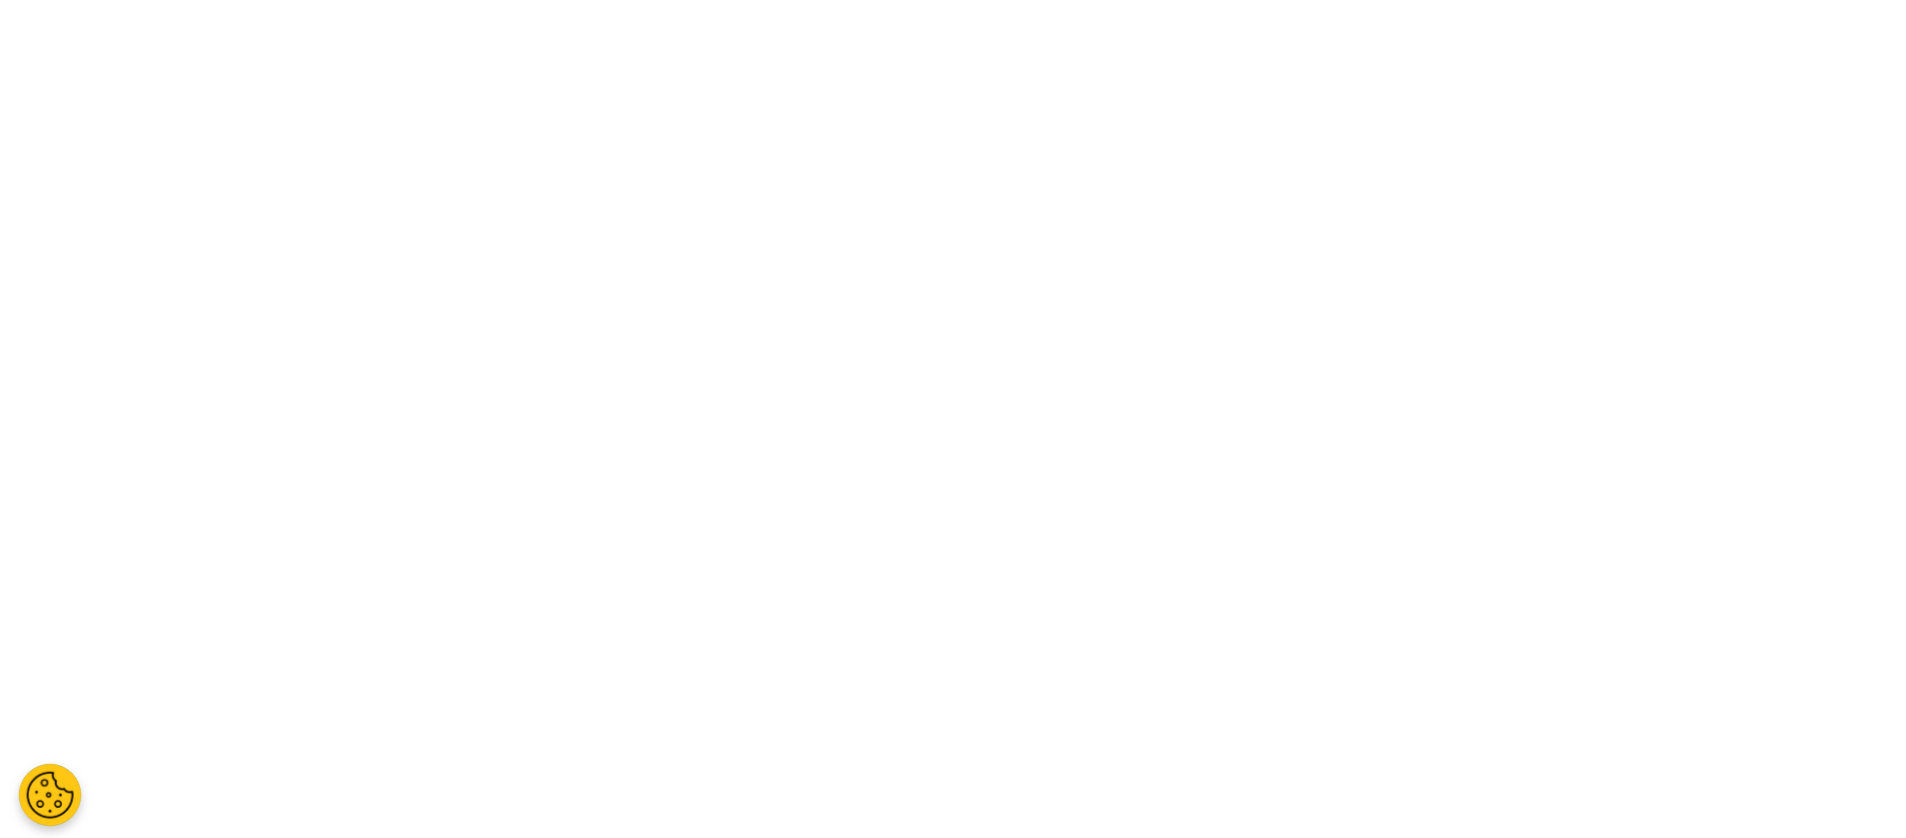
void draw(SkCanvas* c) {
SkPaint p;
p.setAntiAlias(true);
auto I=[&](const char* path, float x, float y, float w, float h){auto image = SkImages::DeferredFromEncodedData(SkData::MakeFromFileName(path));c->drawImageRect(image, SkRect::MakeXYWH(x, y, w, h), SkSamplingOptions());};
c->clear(0xffffffff);
p.setColor(0x33000000);
p.setMaskFilter(SkMaskFilter::MakeBlur(kNormal_SkBlurStyle, 5));
c->drawRoundRect(SkRect::MakeXYWH(19,769,62,62),31,31,p);
p.setMaskFilter(nullptr);
p.setColor(0xff6aaae4);
c->drawCircle(50,795,31,p);
I("1.png",18,763,64,64);
}
